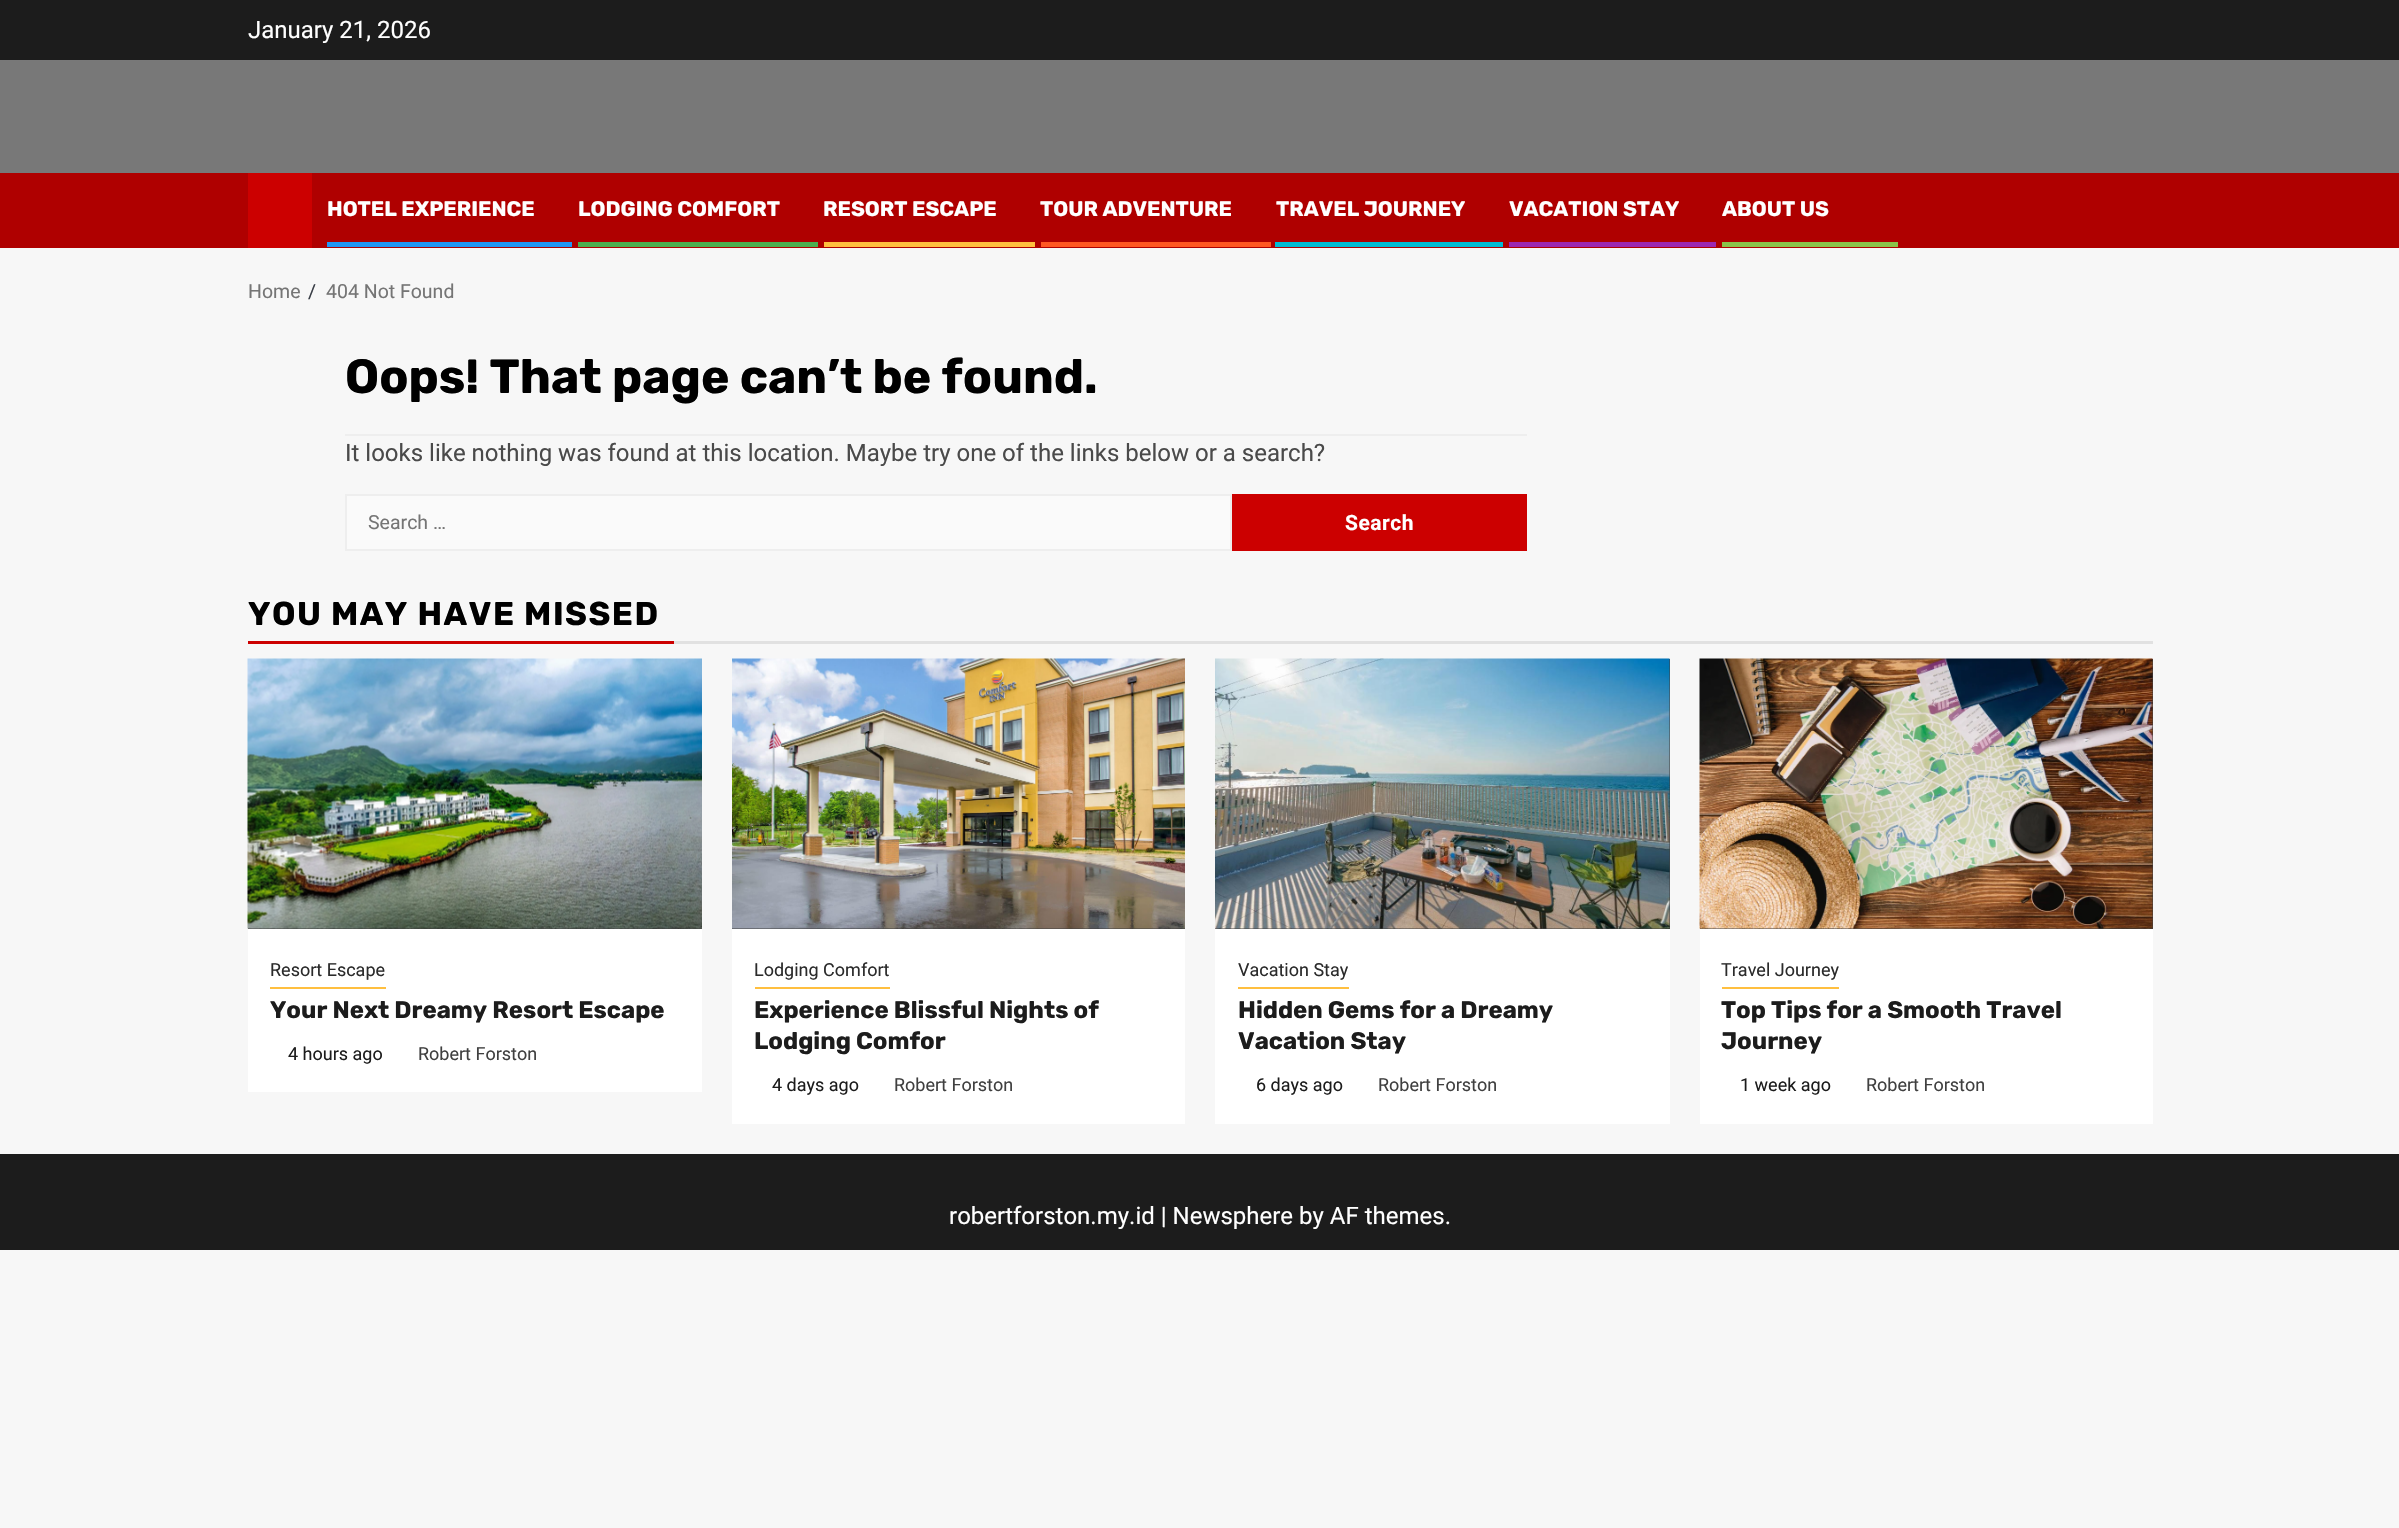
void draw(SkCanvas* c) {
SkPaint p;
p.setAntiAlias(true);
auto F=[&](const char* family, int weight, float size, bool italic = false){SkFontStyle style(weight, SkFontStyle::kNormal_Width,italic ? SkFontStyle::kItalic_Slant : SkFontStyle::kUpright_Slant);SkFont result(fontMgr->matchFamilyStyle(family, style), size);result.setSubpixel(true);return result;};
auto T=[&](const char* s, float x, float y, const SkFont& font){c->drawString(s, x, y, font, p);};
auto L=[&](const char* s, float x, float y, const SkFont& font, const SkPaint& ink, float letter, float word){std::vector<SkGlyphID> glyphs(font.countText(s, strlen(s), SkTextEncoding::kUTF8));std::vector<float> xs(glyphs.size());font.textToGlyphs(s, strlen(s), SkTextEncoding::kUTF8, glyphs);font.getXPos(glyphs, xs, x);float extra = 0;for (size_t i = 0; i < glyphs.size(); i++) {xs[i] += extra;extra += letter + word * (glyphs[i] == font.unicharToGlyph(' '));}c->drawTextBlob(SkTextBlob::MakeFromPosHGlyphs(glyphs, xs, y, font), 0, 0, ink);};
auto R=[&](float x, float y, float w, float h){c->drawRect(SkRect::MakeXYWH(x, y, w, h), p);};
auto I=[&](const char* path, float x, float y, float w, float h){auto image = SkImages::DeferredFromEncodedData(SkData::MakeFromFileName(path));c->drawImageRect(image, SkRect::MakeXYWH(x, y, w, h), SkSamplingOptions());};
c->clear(0xfff7f7f7);
p.setColor(0xff1c1c1c);
R(0,0,2399,60);
auto f1 = F("Roboto",400,24);
p.setColor(0xffffffff);
T("January 21, 2026",248,38,f1);
p.setColor(0xff787878);
R(0,60,2399,113);
p.setColor(0xffaf0000);
R(0,173,2399,75);
p.setColor(0xffcc0000);
R(248,173,64,75);
auto f2 = F("Rubik",700,21);
p.setColor(0xffffffff);
T("HOTEL EXPERIENCE",327,216,f2);
p.setColor(0xff2196f3);
R(327,242,245,5);
p.setColor(0xffffffff);
T("LODGING COMFORT",578,216,f2);
p.setColor(0xff4caf50);
R(578,242,240,5);
p.setColor(0xffffffff);
T("RESORT ESCAPE",823,216,f2);
p.setColor(0xffffbf3f);
R(824,242,211,5);
p.setColor(0xffffffff);
T("TOUR ADVENTURE",1040,216,f2);
p.setColor(0xffff5722);
R(1041,242,230,5);
p.setColor(0xffffffff);
T("TRAVEL JOURNEY",1276,216,f2);
p.setColor(0xff00bcd4);
R(1275,242,228,5);
p.setColor(0xffffffff);
T("VACATION STAY",1509,216,f2);
p.setColor(0xff9c27b0);
R(1509,242,207,5);
p.setColor(0xffffffff);
T("ABOUT US",1722,216,f2);
p.setColor(0xff8bc34a);
R(1722,242,176,5);
auto f3 = F("Roboto",400,19.5);
p.setColor(0xff757575);
T("Home",248,298,f3);
p.setColor(0xff393e46);
T("/",308,298,f3);
p.setColor(0xff757575);
T("404 Not Found",326,298,f3);
p.setColor(0xffeeeeee);
R(345,434,1182,2);
auto f4 = F("Rubik",700,48);
p.setColor(0xff000000);
T("Oops! That page can’t be found.",345,393,f4);
p.setColor(0xff4a4a4a);
T("It looks like nothing was found at this location. Maybe try one of the links below or a search?",345,461,f1);
p.setColor(0xfffafafa);
c->drawRect(SkRect::MakeXYWH(346,495,885,55),p);
p.setStroke(true);
p.setStrokeWidth(2);
p.setColor(0xffeeeeee);
c->drawRect(SkRect::MakeXYWH(346,495,885,55),p);
p.setStroke(false);
p.setColor(0xff757575);
T("Search …",368,529,f3);
p.setColor(0xffcc0000);
R(1232,494,295,57);
auto f5 = F("Roboto",700,21);
p.setColor(0xffffffff);
L("Search",1345,530,f5,p,.5,0);
p.setColor(0xffcc0000);
R(248,641,426,3);
auto f6 = F("Rubik",700,33);
p.setColor(0xff000000);
L("YOU MAY HAVE MISSED",248,625,f6,p,1.5,0);
p.setColor(0xffe1e1e1);
R(674,641,1479,3);
p.setColor(0xffffffff);
R(248,929,454,163);
p.setColor(0xff404040);
R(248,928,454,1);
I("1.png",247,658,455,271);
p.setColor(0xffffbf3f);
R(270,987,116,2);
auto f7 = F("Roboto",400,18);
p.setColor(0xff2b2b2b);
T("Resort Escape",270,976,f7);
auto f8 = F("Rubik",700,24);
p.setColor(0xff1c1c1c);
T("Your Next Dreamy Resort Escape",270,1018,f8);
T("4 hours ago",288,1060,f7);
p.setColor(0xff404040);
T("Robert Forston",418,1060,f7);
p.setColor(0xffffffff);
R(732,929,453,195);
p.setColor(0xff404040);
R(732,928,453,1);
I("2.png",732,658,453,271);
p.setColor(0xffffbf3f);
R(755,987,135,2);
p.setColor(0xff2b2b2b);
T("Lodging Comfort",754,976,f7);
p.setColor(0xff1c1c1c);
T("Experience Blissful Nights of",754,1018,f8);
T("Lodging Comfor",754,1049,f8);
T("4 days ago",772,1091,f7);
p.setColor(0xff404040);
T("Robert Forston",894,1091,f7);
p.setColor(0xffffffff);
R(1215,929,455,195);
p.setColor(0xff404040);
R(1215,659,455,270);
I("3.png",1215,658,455,271);
p.setColor(0xffffbf3f);
R(1238,987,111,2);
p.setColor(0xff2b2b2b);
T("Vacation Stay",1238,976,f7);
p.setColor(0xff1c1c1c);
T("Hidden Gems for a Dreamy",1238,1018,f8);
T("Vacation Stay",1238,1049,f8);
T("6 days ago",1256,1091,f7);
p.setColor(0xff404040);
T("Robert Forston",1378,1091,f7);
p.setColor(0xffffffff);
R(1700,929,453,195);
p.setColor(0xff404040);
R(1700,659,453,270);
I("4.png",1699,658,454,271);
p.setColor(0xffffbf3f);
R(1722,987,117,2);
p.setColor(0xff2b2b2b);
T("Travel Journey",1721,976,f7);
p.setColor(0xff1c1c1c);
T("Top Tips for a Smooth Travel",1721,1018,f8);
T("Journey",1721,1049,f8);
T("1 week ago",1740,1091,f7);
p.setColor(0xff404040);
T("Robert Forston",1866,1091,f7);
p.setColor(0xff1c1c1c);
R(0,1154,2399,96);
p.setColor(0xffffffff);
T("robertforston.my.id | Newsphere by AF themes.",949,1224,f1);
}
